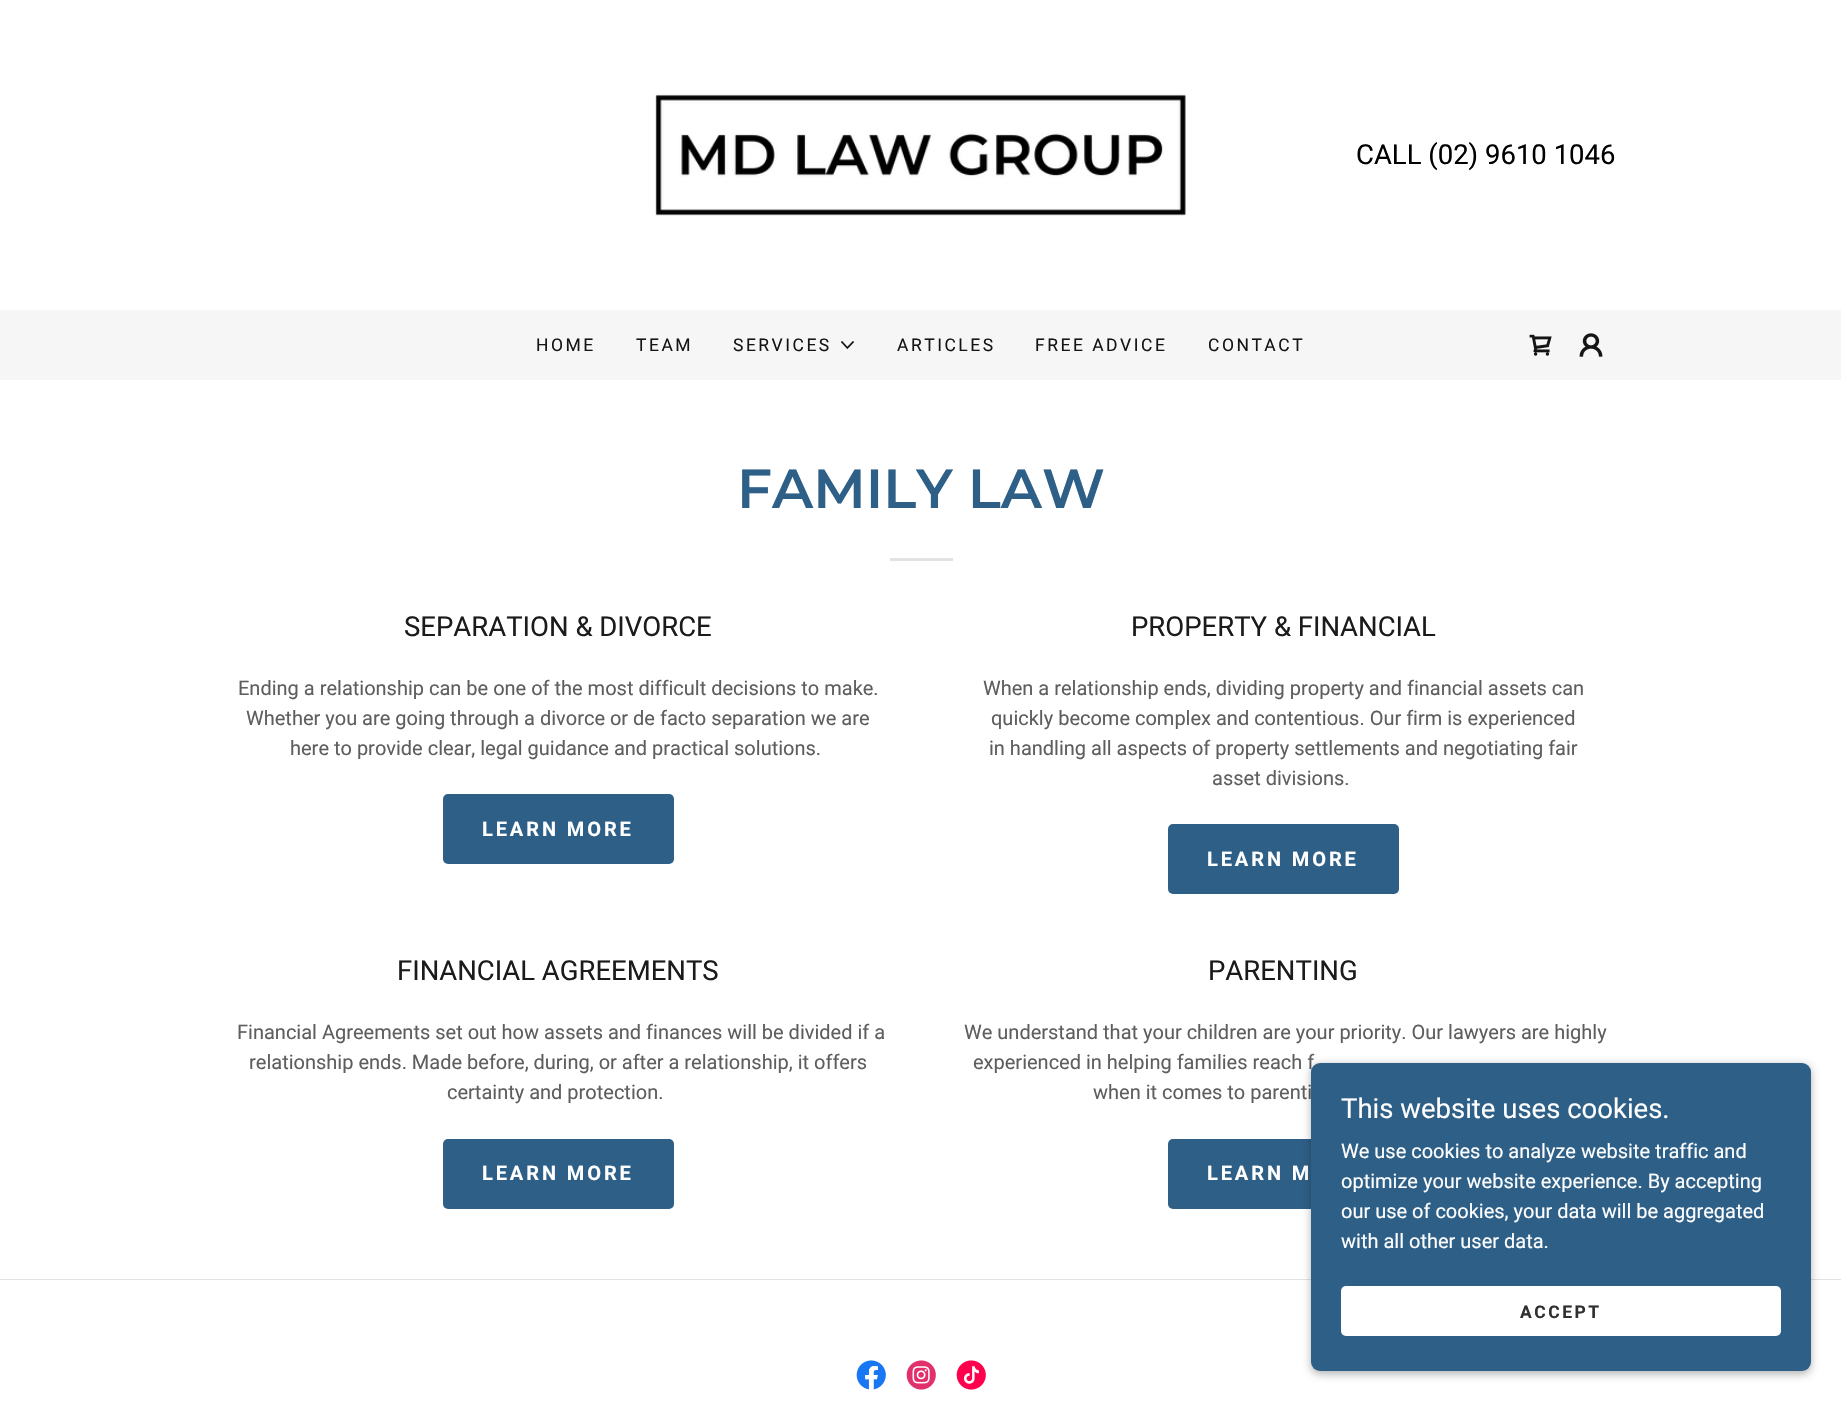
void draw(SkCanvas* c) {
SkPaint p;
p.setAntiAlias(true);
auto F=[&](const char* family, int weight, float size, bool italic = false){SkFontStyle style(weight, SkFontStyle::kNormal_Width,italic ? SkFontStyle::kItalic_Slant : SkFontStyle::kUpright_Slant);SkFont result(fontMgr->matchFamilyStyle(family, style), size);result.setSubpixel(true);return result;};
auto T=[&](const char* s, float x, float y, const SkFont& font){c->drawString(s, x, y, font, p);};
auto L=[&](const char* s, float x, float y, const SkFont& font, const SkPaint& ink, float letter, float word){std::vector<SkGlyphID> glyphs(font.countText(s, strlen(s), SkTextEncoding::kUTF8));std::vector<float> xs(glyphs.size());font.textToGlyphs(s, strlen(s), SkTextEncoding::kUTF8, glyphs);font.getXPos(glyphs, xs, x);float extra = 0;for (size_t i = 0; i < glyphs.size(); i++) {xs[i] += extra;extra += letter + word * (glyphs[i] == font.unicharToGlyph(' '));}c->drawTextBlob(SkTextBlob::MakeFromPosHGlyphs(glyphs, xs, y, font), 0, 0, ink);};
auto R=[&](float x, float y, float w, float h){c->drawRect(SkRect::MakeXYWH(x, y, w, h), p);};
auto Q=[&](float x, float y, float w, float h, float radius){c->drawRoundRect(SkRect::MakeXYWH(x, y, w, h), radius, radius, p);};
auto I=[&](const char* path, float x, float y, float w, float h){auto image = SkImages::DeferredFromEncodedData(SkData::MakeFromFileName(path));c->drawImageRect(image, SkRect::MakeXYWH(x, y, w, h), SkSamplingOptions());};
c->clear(0xffffffff);
I("1.png",655,94,531,122);
auto f1 = F("Roboto",400,27.5);
p.setColor(0xff000000);
T("CALL (02) 9610 1046",1356,164,f1);
p.setColor(0xfff6f6f6);
R(0,310,1841,70);
auto f2 = F("Roboto",400,17.5);
p.setColor(0xff151515);
L("HOME",536,351,f2,p,2.5,0);
L("TEAM",636,351,f2,p,2.5,0);
L("SERVICES",733,351,f2,p,2.5,0);
I("2.png",840,341,15,9);
L("ARTICLES",897,351,f2,p,2.5,0);
L("FREE ADVICE",1035,351,f2,p,2.5,0);
L("CONTACT",1208,351,f2,p,2.5,0);
I("3.png",1529,334,23,22);
I("4.png",1579,333,24,24);
auto f3 = F("Montserrat",600,55);
p.setColor(0xff2e5f87);
T("FAMILY LAW",737,508,f3);
p.setColor(0xffe2e2e2);
R(890,558,63,3);
p.setColor(0xff1b1b1b);
T("SEPARATION & DIVORCE",404,636,f1);
auto f4 = F("Roboto",400,20);
p.setColor(0xff5e5e5e);
T("Ending a relationship can be one of the most difficult decisions to make.",238,695,f4);
T("Whether you are going through a divorce or de facto separation we are",246,725,f4);
T("here to provide clear, legal guidance and practical solutions.",290,755,f4);
p.setColor(0xff2e5f87);
Q(443,794,231,70,5);
auto f5 = F("Roboto",700,20);
p.setColor(0xffffffff);
L("LEARN MORE",482,836,f5,p,2.9,0);
p.setColor(0xff1b1b1b);
T("PROPERTY & FINANCIAL",1131,636,f1);
p.setColor(0xff5e5e5e);
T("When a relationship ends, dividing property and financial assets can",983,695,f4);
T("quickly become complex and contentious. Our firm is experienced",991,725,f4);
T("in handling all aspects of property settlements and negotiating fair",989,755,f4);
T("asset divisions.",1212,785,f4);
p.setColor(0xff2e5f87);
Q(1168,824,231,70,5);
p.setColor(0xffffffff);
L("LEARN MORE",1207,866,f5,p,2.9,0);
p.setColor(0xff1b1b1b);
T("FINANCIAL AGREEMENTS",397,980,f1);
p.setColor(0xff5e5e5e);
T("Financial Agreements set out how assets and finances will be divided if a",237,1039,f4);
T("relationship ends. Made before, during, or after a relationship, it offers",249,1069,f4);
T("certainty and protection.",447,1099,f4);
p.setColor(0xff2e5f87);
Q(443,1139,231,70,5);
p.setColor(0xffffffff);
L("LEARN MORE",482,1180,f5,p,2.9,0);
p.setColor(0xff1b1b1b);
T("PARENTING",1208,980,f1);
p.setColor(0xff5e5e5e);
T("We understand that your children are your priority. Our lawyers are highly",964,1039,f4);
T("experienced in helping families reach f",973,1069,f4);
T("when it comes to parenti",1093,1099,f4);
p.setColor(0xff2e5f87);
Q(1168,1139,231,70,5);
p.setColor(0xffffffff);
L("LEARN M",1207,1180,f5,p,2.9,0);
p.setColor(0xffe2e2e2);
R(0,1279,1841,1);
p.setColor(0x4d000000);
p.setMaskFilter(SkMaskFilter::MakeBlur(kNormal_SkBlurStyle, 4));
c->drawRoundRect(SkRect::MakeXYWH(1311,1065,500,309),9,9,p);
p.setMaskFilter(nullptr);
p.setColor(0xff2e5f87);
Q(1311,1063,500,308,9);
p.setColor(0xffffffff);
T("This website uses cookies.",1341,1118,f1);
T("We use cookies to analyze website traffic and",1341,1158,f4);
T("optimize your website experience. By accepting",1341,1188,f4);
T("our use of cookies, your data will be aggregated",1341,1218,f4);
T("with all other user data.",1341,1248,f4);
Q(1341,1286,440,50,5);
auto f6 = F("Roboto",700,17.5);
p.setColor(0xff303030);
L("ACCEPT",1520,1318,f6,p,2.5,0);
I("5.png",856,1360,30,30);
I("6.png",906,1360,30,30);
I("7.png",956,1360,30,30);
}
